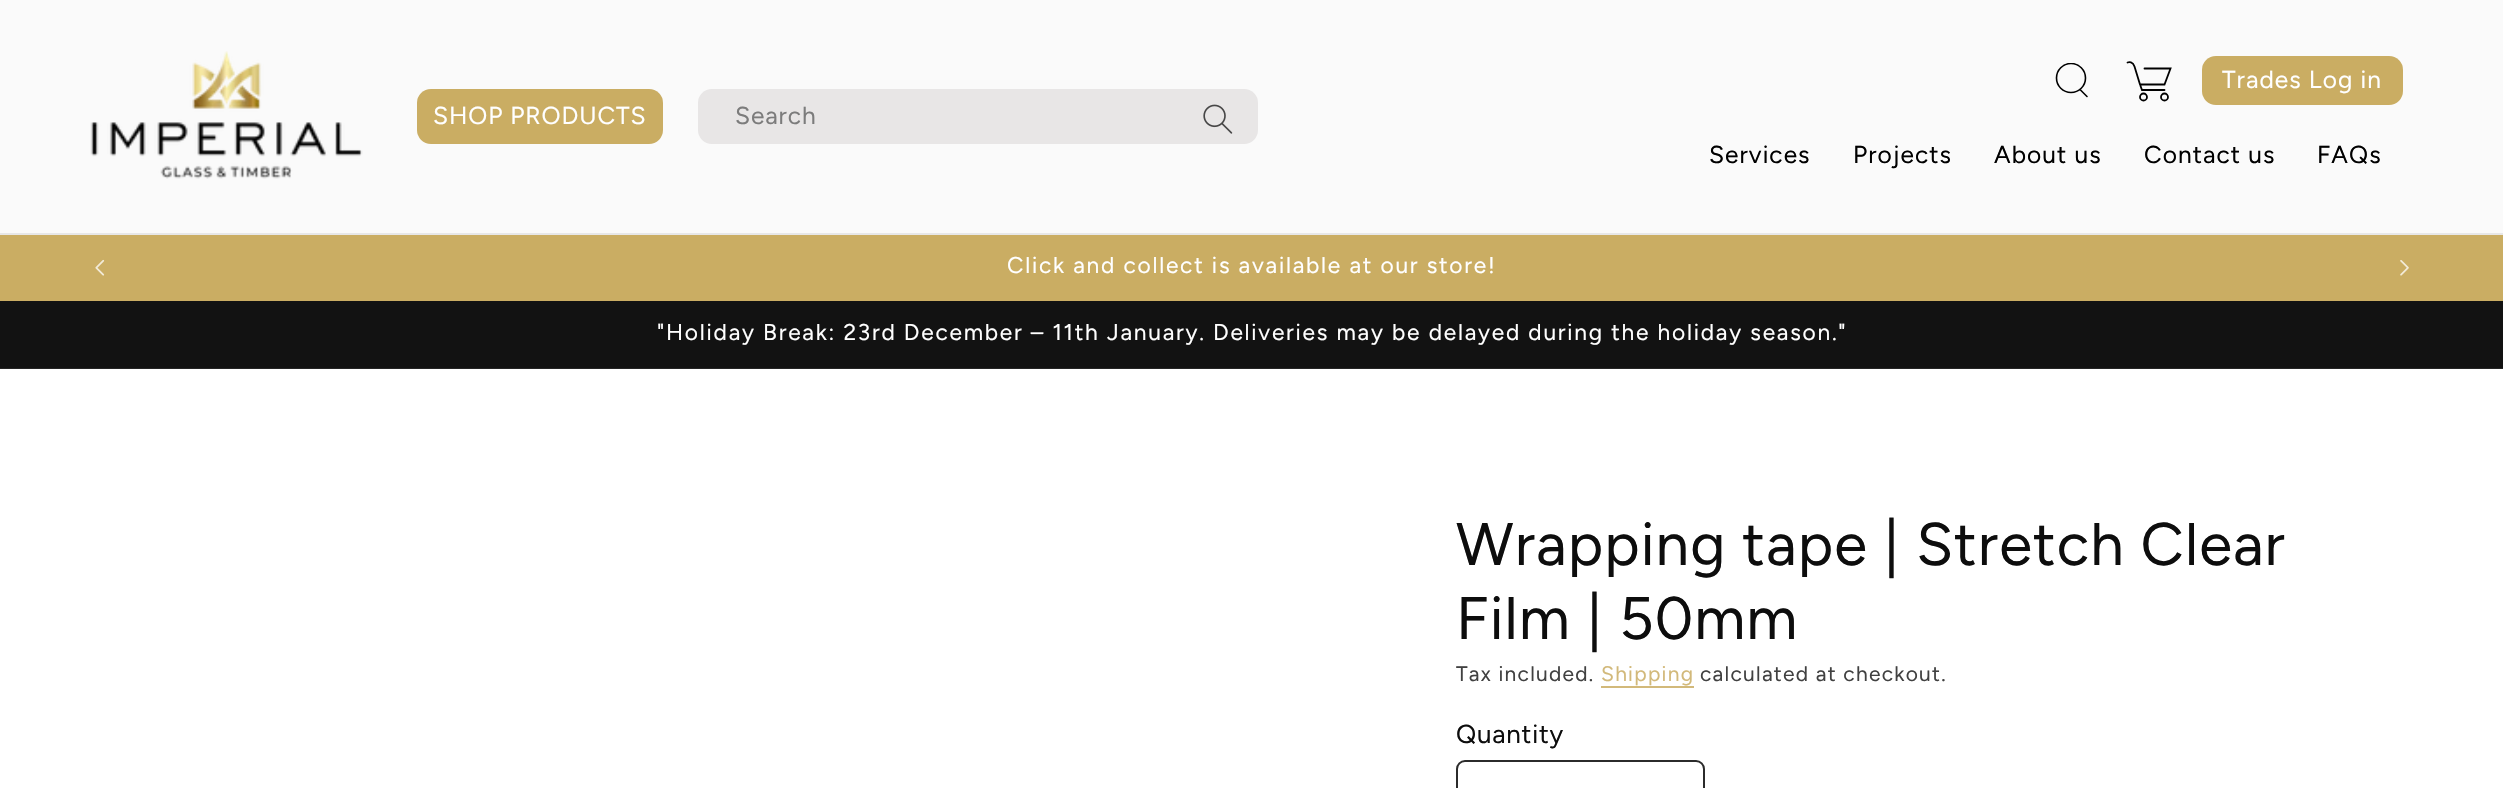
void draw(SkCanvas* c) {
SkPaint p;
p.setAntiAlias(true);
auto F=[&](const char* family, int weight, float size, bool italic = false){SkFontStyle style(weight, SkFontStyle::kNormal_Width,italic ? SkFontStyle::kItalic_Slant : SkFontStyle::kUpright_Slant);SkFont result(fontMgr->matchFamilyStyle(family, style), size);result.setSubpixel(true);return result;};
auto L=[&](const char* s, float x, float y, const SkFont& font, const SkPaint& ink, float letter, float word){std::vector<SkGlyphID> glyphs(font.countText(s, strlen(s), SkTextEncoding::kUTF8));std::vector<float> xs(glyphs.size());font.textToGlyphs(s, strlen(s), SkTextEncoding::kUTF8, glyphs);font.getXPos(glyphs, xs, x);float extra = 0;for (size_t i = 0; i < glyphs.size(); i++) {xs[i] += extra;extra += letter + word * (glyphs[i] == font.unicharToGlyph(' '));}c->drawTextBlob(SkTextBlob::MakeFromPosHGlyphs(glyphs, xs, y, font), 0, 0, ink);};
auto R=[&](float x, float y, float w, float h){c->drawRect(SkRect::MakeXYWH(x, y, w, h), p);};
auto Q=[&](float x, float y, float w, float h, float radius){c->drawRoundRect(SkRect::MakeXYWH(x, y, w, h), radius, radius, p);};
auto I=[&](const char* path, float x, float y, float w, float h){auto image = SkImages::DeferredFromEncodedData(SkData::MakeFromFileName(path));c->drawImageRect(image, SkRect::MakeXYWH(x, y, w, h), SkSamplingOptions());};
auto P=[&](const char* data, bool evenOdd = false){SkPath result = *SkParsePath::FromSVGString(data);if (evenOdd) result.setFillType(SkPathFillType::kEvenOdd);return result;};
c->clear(0xffffffff);
p.setColor(0xfffafafa);
R(0,0,2503,233);
p.setColor(0xffe7e7e7);
R(0,233,2503,2);
I("1.png",90,51,273,128);
p.setColor(0xffcaad63);
Q(417,89,246,55,14);
auto f1 = F("Figtree",400,24.5);
p.setColor(0xffffffff);
L("SHOP PRODUCTS",433,124,f1,p,.9,0);
p.setColor(0xffe8e6e6);
Q(698,89,560,55,14);
p.setColor(0xff7c7c7c);
L("Search",735,124,f1,p,.9,0);
I("2.png",1203,104,30,30);
c->save();
c->clipRect(SkRect::MakeXYWH(2055,63,35,35));
p.setStroke(true);
p.setStrokeWidth(1.6);
p.setColor(0xff000000);
c->drawCircle(2071,78,14.5,p);
c->restore();
p.setStrokeCap(SkPaint::kRound_Cap);
c->drawPath(P("M2080.5 90l6.5 6.5"),p);
p.setStrokeWidth(1.8);
c->drawPath(P("M2127.5 62.5c1.5-.5 5.5-1 7 4l5.5 18m24.5 5.5h-22.5l-2-5.5m0 0h24.5l6-16h-26"),p);
p.setStrokeCap(SkPaint::kButt_Cap);
c->drawCircle(2143.5,97,3.5,p);
c->drawCircle(2164.5,97,3.5,p);
p.setStroke(false);
p.setColor(0xffcaad63);
Q(2202,56,201,49,14);
p.setColor(0xffffffff);
L("Trades Log in",2222,88,f1,p,1.05,0);
p.setColor(0xff000000);
L("Services",1709,163,f1,p,1.05,0);
L("Projects",1853,163,f1,p,1.05,0);
L("About us",1994,163,f1,p,1.05,0);
L("Contact us",2144,163,f1,p,1.05,0);
L("FAQs",2317,163,f1,p,1.05,0);
p.setColor(0xffcaad63);
R(0,235,2503,66);
I("3.png",95,259,10,17);
auto f2 = F("Figtree",400,22.75);
p.setColor(0xffffffff);
L("Click and collect is available at our store!",1007,273,f2,p,1.75,0);
I("4.png",2400,260,9,16);
p.setColor(0xff121212);
R(0,301,2503,67);
p.setColor(0xff252525);
R(0,368,2503,1);
p.setColor(0xffffffff);
L("\"Holiday Break: 23rd December – 11th January. Deliveries may be delayed during the holiday season.\"",657,340,f2,p,1.75,0);
auto f3 = F("Figtree",400,60);
p.setColor(0xff0d0d0d);
L("Wrapping tape | Stretch Clear",1456,565,f3,p,1.05,0);
L("Film | 50mm",1456,639,f3,p,1.05,0);
auto f4 = F("Figtree",400,21);
p.setColor(0xff414141);
L("Tax included.",1456,681,f4,p,1.25,0);
p.setColor(0xffd2b97a);
L("Shipping",1601,681,f4,p,1.25,0);
R(1601,686,93,2);
p.setColor(0xff414141);
L("calculated at checkout.",1700,681,f4,p,1.25,0);
auto f5 = F("Figtree",400,26);
p.setColor(0xff0d0d0d);
L("Quantity",1456,743,f5,p,.75,0);
p.setStroke(true);
p.setStrokeWidth(2);
p.setColor(0xff2b2b2b);
c->drawRoundRect(SkRect::MakeXYWH(1457,761,247,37),8,8,p);
}
